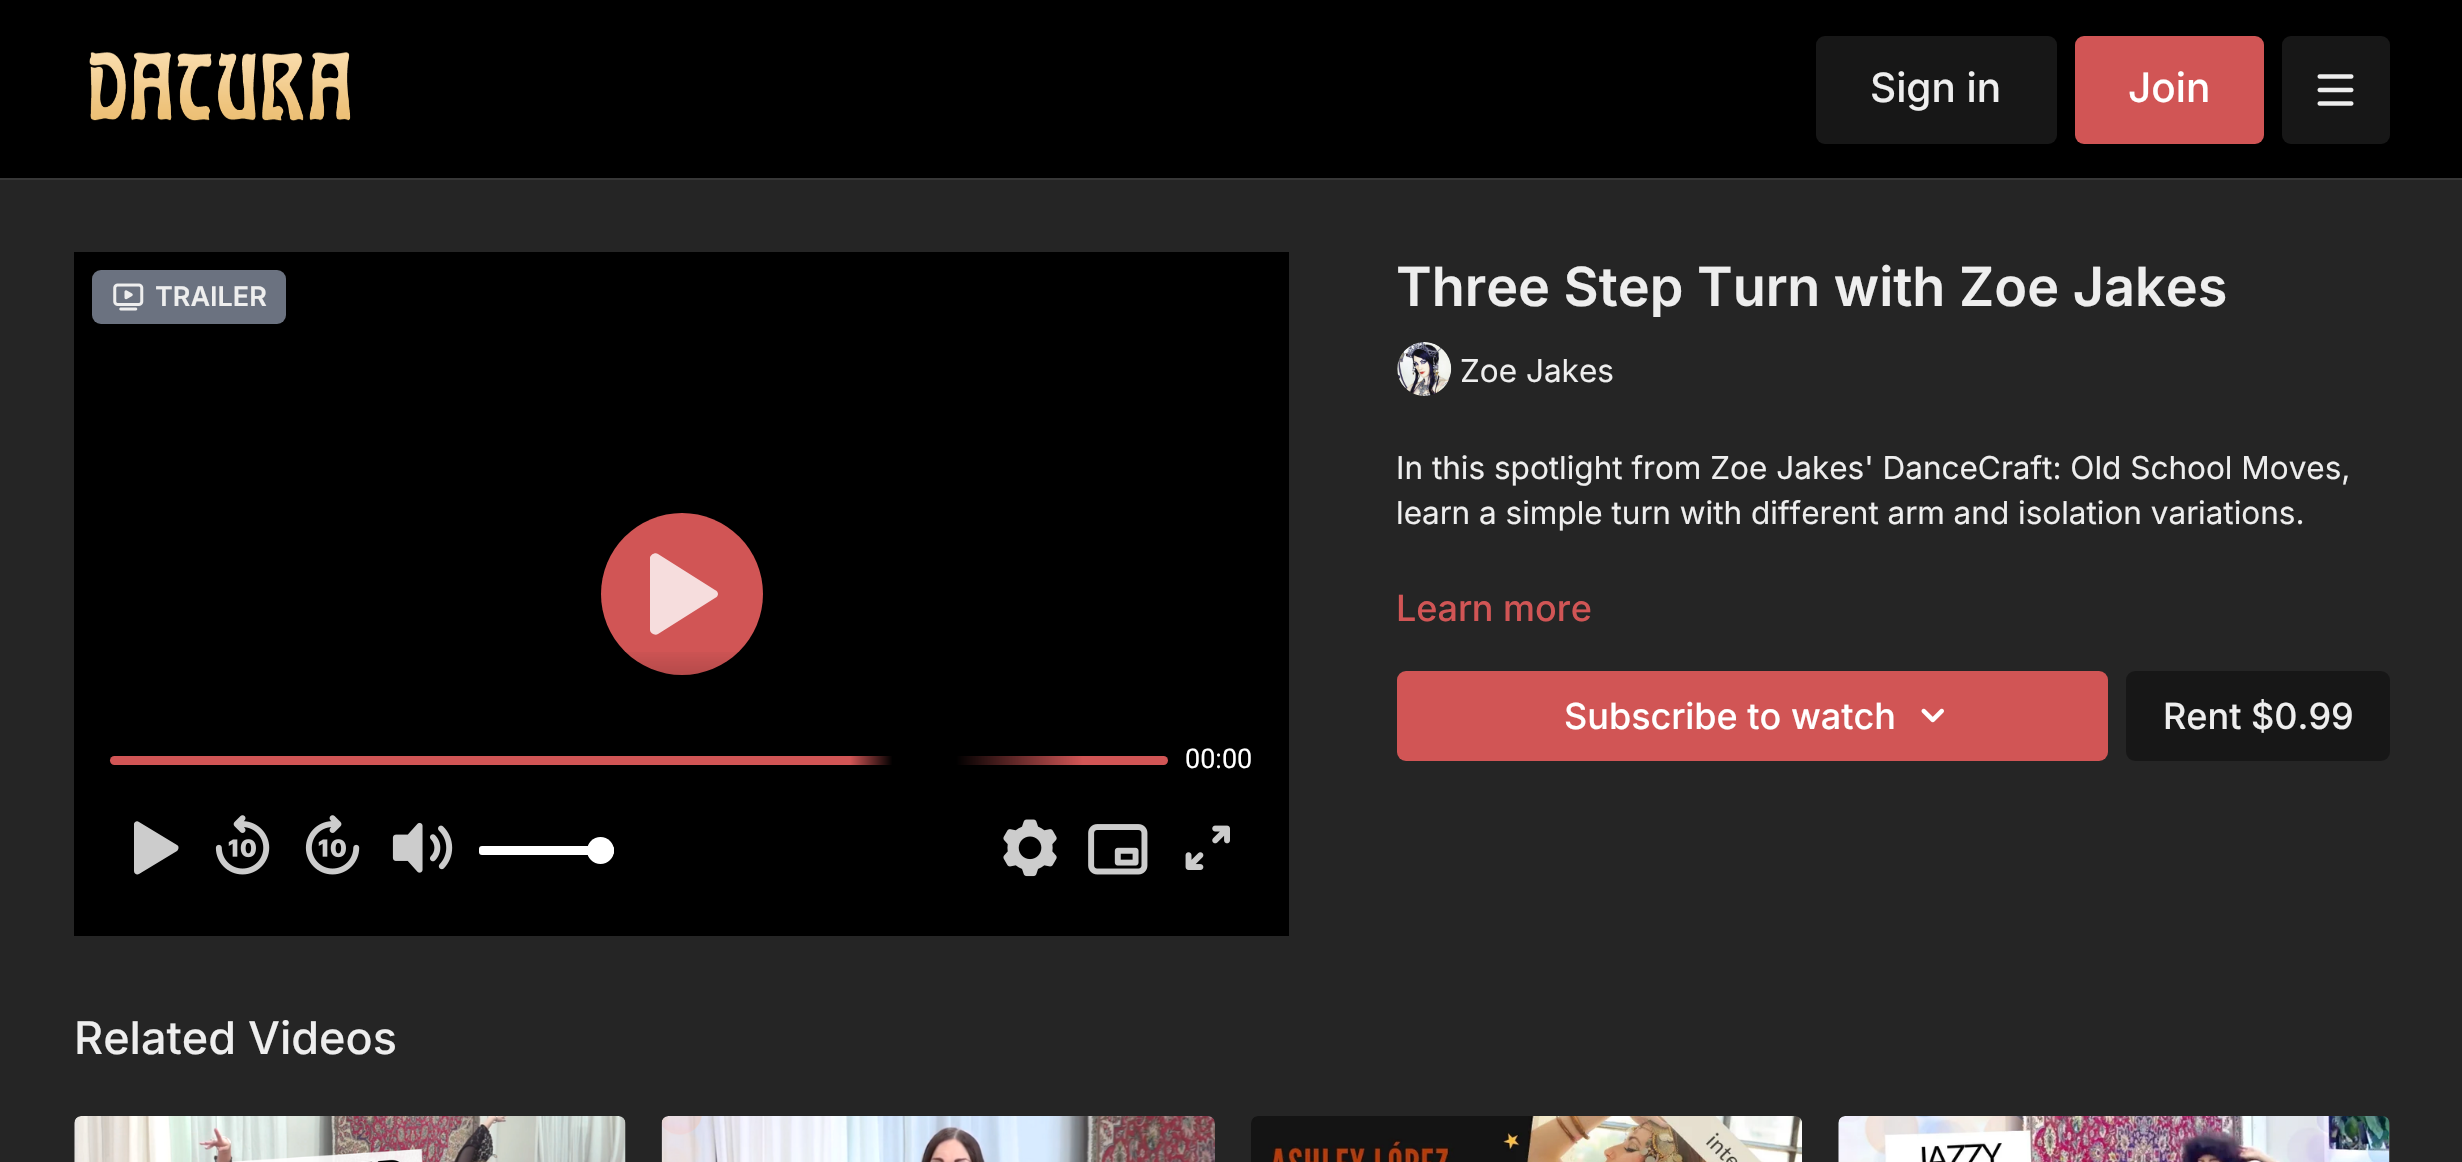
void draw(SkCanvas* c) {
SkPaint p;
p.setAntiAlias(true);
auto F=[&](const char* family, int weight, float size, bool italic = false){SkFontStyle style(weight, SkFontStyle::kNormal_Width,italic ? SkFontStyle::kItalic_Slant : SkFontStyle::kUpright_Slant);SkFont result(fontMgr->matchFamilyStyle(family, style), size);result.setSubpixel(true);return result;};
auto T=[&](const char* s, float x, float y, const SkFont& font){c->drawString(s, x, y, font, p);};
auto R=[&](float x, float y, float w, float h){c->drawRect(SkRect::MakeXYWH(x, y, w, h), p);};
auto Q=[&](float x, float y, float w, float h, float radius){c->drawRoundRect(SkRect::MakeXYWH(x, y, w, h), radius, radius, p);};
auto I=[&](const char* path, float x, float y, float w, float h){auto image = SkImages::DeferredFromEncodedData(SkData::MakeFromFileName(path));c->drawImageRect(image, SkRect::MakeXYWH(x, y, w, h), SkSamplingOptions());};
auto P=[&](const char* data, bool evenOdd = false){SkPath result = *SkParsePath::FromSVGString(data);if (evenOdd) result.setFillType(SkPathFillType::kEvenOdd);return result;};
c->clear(0xff252525);
p.setColor(0xff000000);
R(0,0,2462,178);
p.setColor(0xff373737);
R(0,178,2462,2);
I("1.png",89,52,262,69);
p.setColor(0xff171717);
Q(1816,36,241,108,9);
auto f1 = F("Inter",500,40.5);
p.setColor(0xffeeeeee);
T("Sign in",1870,102,f1);
p.setColor(0xffd15555);
Q(2075,36,189,108,9);
p.setColor(0xffffffff);
T("Join",2128,102,f1);
p.setColor(0xff171717);
Q(2282,36,108,108,9);
I("2.png",2317,74,37,32);
p.setColor(0xff000000);
R(74,252,1215,684);
p.setColor(0xff6b7280);
Q(92,270,194,54,9);
I("3.png",113,283,31,28);
auto f2 = F("Inter",600,27);
p.setColor(0xffeeeeee);
T("TRAILER",155,306,f2);
p.setColor(0xffd15555);
c->drawCircle(682,594,81,p);
p.setColor(0xfff6dddd);
c->drawPath(P("M658 554c-3-2-8 1-8 4v72c0 3 5 6 8 4l57-36c4-2 4-6 0-8z"),p);
{
const SkColor colors[] = {0x99000000,0x00000000};
const float stops[] = {.54,.96};
const SkPoint ends[] = {{682,936}, {682,635}};
p.setShader(SkGradientShader::MakeLinear(ends, colors, stops, 2, SkTileMode::kClamp));
p.setAlpha(255);
}
R(626,652,112,23);
{
const SkColor colors[] = {0xffd15555,0xff000000,0xff000000,0xffd15555,0xffd15555};
const float stops[] = {.35,.37,.4,.46,1};
const SkPoint ends[] = {{110,765}, {2225,765}};
p.setShader(SkGradientShader::MakeLinear(ends, colors, stops, 5, SkTileMode::kClamp));
p.setAlpha(255);
}
Q(110,756,1058,9,4.5);
auto f3 = F("Roboto",400,27);
p.setShader(nullptr);
p.setColor(0xffffffff);
T("00:00",1185,768,f3);
p.setColor(0xffcccccc);
c->drawPath(P("M139 822c-2-2-5 0-5 2v47c0 3 3 4 5 3l38-23c2-2 2-5 0-6z"),p);
I("4.png",215,815,55,60);
I("5.png",305,815,55,60);
I("6.png",392,822,61,51);
p.setColor(0xffffffff);
Q(479,846,135,9,3);
c->drawCircle(600.5,850.5,13.5,p);
I("7.png",1003,819,54,58);
I("8.png",1088,824,60,51);
I("9.png",1185,825,45,45);
auto f4 = F("Inter",600,54);
p.setColor(0xffeeeeee);
T("Three Step Turn with Zoe Jakes",1396,306,f4);
I("10.png",1397,342,55,54);
auto f5 = F("Inter",400,31.5);
T("Zoe Jakes",1460,382,f5);
T("In this spotlight from Zoe Jakes' DanceCraft: Old School Moves,",1396,479,f5);
T("learn a simple turn with different arm and isolation variations.",1396,524,f5);
auto f6 = F("Inter",500,36);
p.setColor(0xffd15555);
T("Learn more",1396,621,f6);
Q(1397,671,711,90,9);
p.setColor(0xffffffff);
T("Subscribe to watch",1564,729,f6);
I("11.png",1921,708,23,15);
p.setColor(0xff171717);
Q(2126,671,264,90,9);
p.setColor(0xffeeeeee);
T("Rent $0.99",2163,729,f6);
auto f7 = F("Inter",500,45);
T("Related Videos",74,1054,f7);
{
const SkColor colors[] = {0xff414141,0xff3f3f3f,0xff3d3d3d};
const float stops[] = {.08,.18,.33};
const SkPoint ends[] = {{74,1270}, {626,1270}};
p.setShader(SkGradientShader::MakeLinear(ends, colors, stops, 3, SkTileMode::kClamp));
p.setAlpha(255);
}
Q(74,1116,552,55,9);
I("12.png",74,1116,552,46);
I("13.png",661,1116,554,46);
I("14.png",1251,1116,551,46);
{
const SkColor colors[] = {0xff414141,0xff3f3f3f,0xff3d3d3d};
const float stops[] = {.08,.18,.33};
const SkPoint ends[] = {{1838,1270}, {2390,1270}};
p.setShader(SkGradientShader::MakeLinear(ends, colors, stops, 3, SkTileMode::kClamp));
p.setAlpha(255);
}
Q(1838,1116,552,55,9);
I("15.png",1838,1116,552,46);
}
